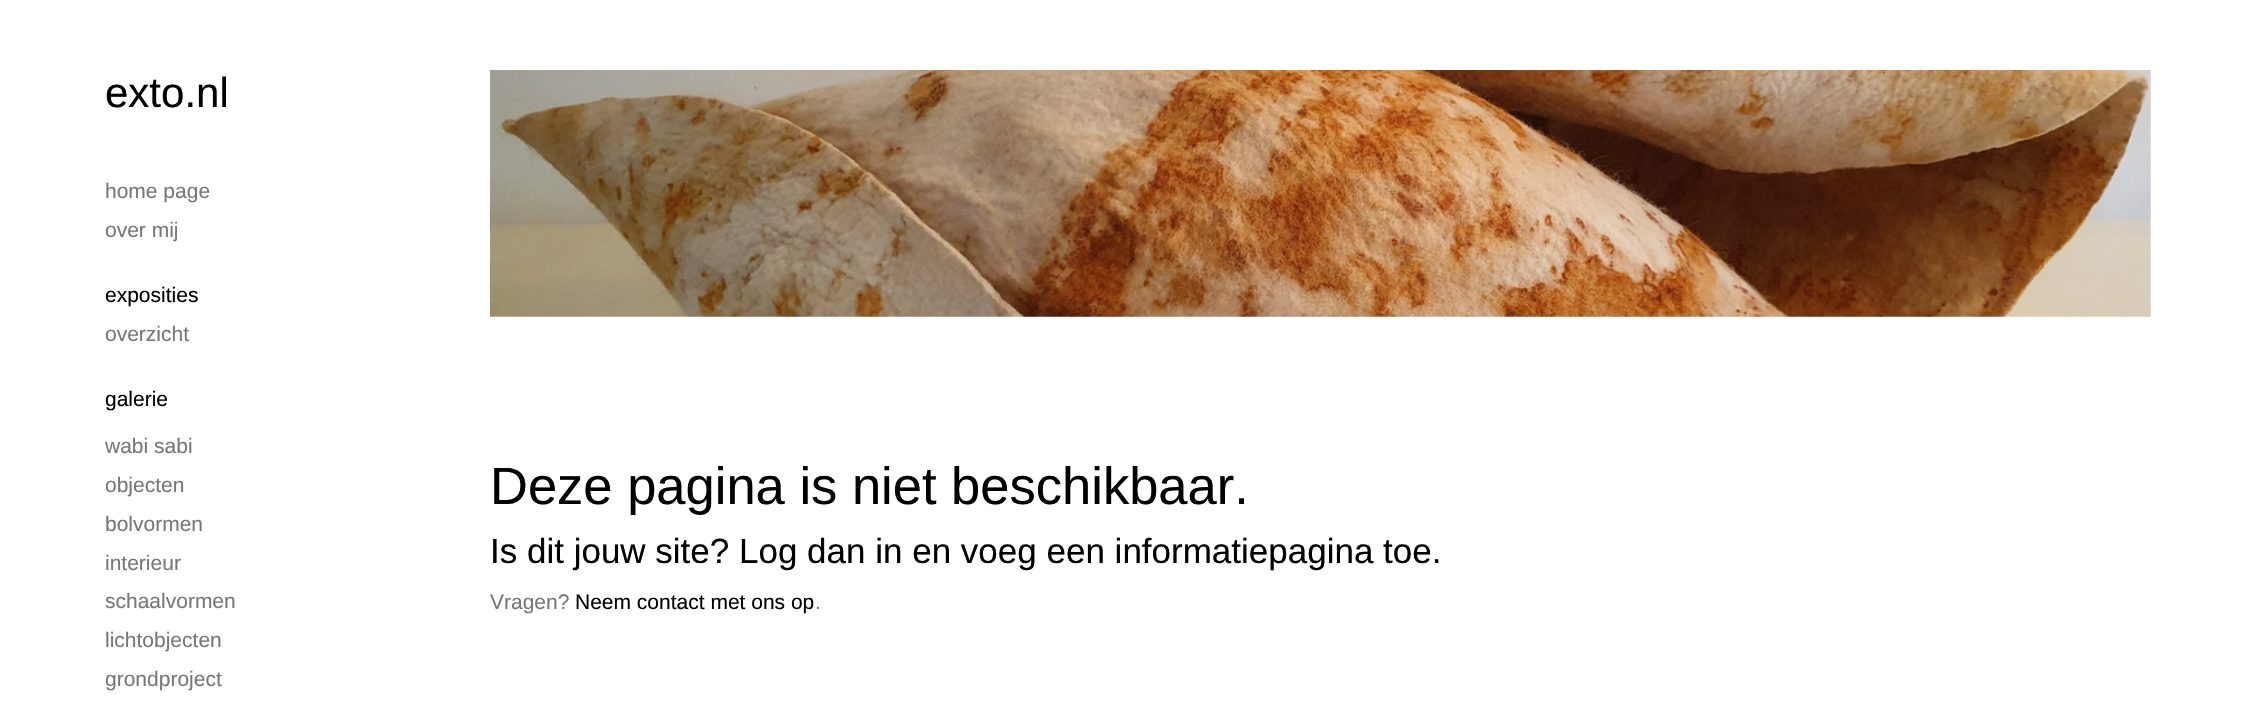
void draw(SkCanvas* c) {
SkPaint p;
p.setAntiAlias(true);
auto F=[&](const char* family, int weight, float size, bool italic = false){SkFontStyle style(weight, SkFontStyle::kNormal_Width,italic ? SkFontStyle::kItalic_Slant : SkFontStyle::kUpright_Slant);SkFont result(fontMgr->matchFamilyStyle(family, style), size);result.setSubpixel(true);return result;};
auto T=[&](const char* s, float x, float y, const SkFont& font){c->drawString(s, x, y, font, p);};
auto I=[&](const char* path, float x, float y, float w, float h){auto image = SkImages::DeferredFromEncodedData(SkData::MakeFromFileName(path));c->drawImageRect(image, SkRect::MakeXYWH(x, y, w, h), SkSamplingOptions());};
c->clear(0xffffffff);
I("1.png",490,70,1661,247);
auto f1 = F("Liberation Sans",400,42);
p.setColor(0xff000000);
T("exto.nl",105,107,f1);
auto f2 = F("Liberation Sans",400,21);
p.setColor(0xff777777);
T("home page",105,198,f2);
T("over mij",105,237,f2);
p.setColor(0xff000000);
T("exposities",105,302,f2);
p.setColor(0xff777777);
T("overzicht",105,341,f2);
p.setColor(0xff000000);
T("galerie",105,406,f2);
p.setColor(0xff777777);
T("wabi sabi",105,453,f2);
T("objecten",105,492,f2);
T("bolvormen",105,531,f2);
T("interieur",105,570,f2);
T("schaalvormen",105,608,f2);
T("lichtobjecten",105,647,f2);
T("grondproject",105,686,f2);
auto f3 = F("Liberation Sans",400,52.5);
p.setColor(0xff000000);
T("Deze pagina is niet beschikbaar.",490,504,f3);
auto f4 = F("Liberation Sans",400,35);
T("Is dit jouw site? Log dan in en voeg een informatiepagina toe.",490,563,f4);
p.setColor(0xff777777);
T("Vragen?",490,609,f2);
p.setColor(0xff000000);
T("Neem contact met ons op",575,609,f2);
p.setColor(0xff777777);
T(".",815,609,f2);
}
